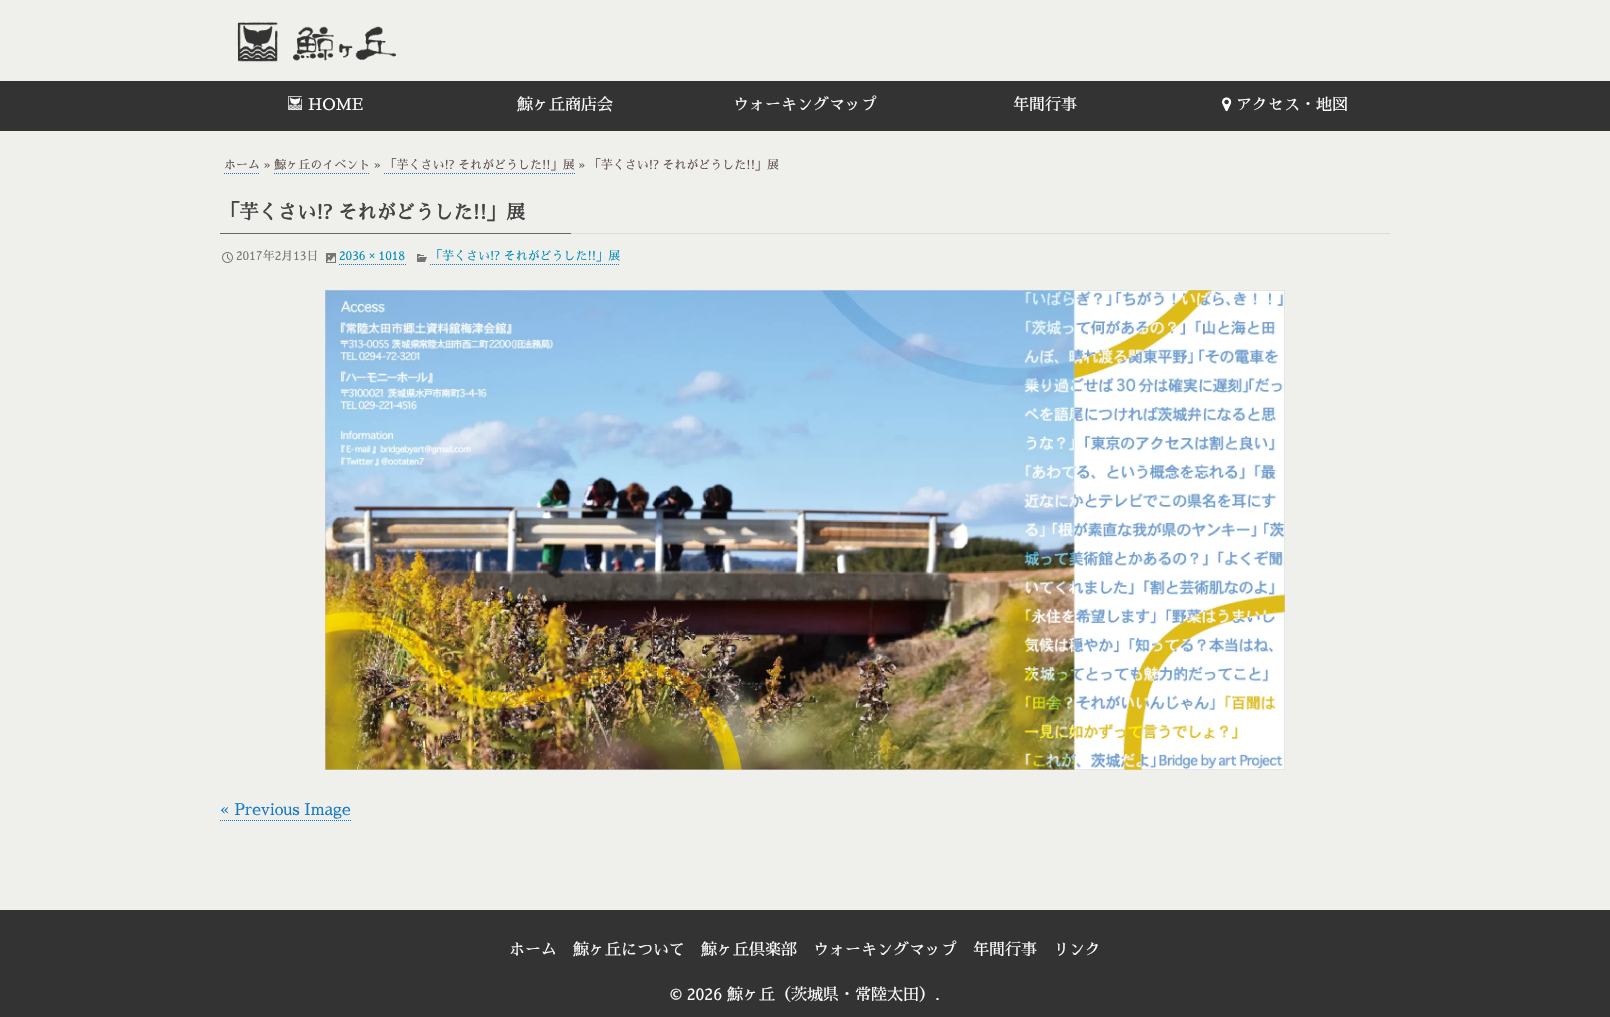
void draw(SkCanvas* c) {
SkPaint p;
p.setAntiAlias(true);
auto F=[&](const char* family, int weight, float size, bool italic = false){SkFontStyle style(weight, SkFontStyle::kNormal_Width,italic ? SkFontStyle::kItalic_Slant : SkFontStyle::kUpright_Slant);SkFont result(fontMgr->matchFamilyStyle(family, style), size);result.setSubpixel(true);return result;};
auto T=[&](const char* s, float x, float y, const SkFont& font){c->drawString(s, x, y, font, p);};
auto R=[&](float x, float y, float w, float h){c->drawRect(SkRect::MakeXYWH(x, y, w, h), p);};
auto I=[&](const char* path, float x, float y, float w, float h){auto image = SkImages::DeferredFromEncodedData(SkData::MakeFromFileName(path));c->drawImageRect(image, SkRect::MakeXYWH(x, y, w, h), SkSamplingOptions());};
auto P=[&](const char* data, bool evenOdd = false){SkPath result = *SkParsePath::FromSVGString(data);if (evenOdd) result.setFillType(SkPathFillType::kEvenOdd);return result;};
c->clear(0xffefefeb);
I("1.png",237,22,160,40);
p.setColor(0xff333333);
R(0,81,1610,50);
I("2.png",288,96,14,15);
auto f1 = F("Sawarabi Mincho",400,16);
p.setColor(0xffffffff);
T("HOME",308,110,f1);
T("鯨ヶ丘商店会",517,110,f1);
T("ウォーキングマップ",733,110,f1);
T("年間行事",1013,110,f1);
I("3.png",1222,97,10,15);
T("アクセス・地図",1236,110,f1);
auto f2 = F("Sawarabi Mincho",400,12);
p.setColor(0xff604e4e);
T("ホーム » 鯨ヶ丘のイベント » 「芋くさい!? それがどうした!!」展 » 「芋くさい!? それがどうした!!」展",224,169,f2);
p.setStroke(true);
p.setStrokeWidth(1);
p.setColor(0xff167ac6);
p.setPathEffect(SkDashPathEffect::Make({{1,1}}, 0));
c->drawPath(P("M224 173.5h36"),p);
p.setPathEffect(nullptr);
p.setPathEffect(SkDashPathEffect::Make({{1,1}}, 0));
c->drawPath(P("M274 173.5h96"),p);
p.setPathEffect(nullptr);
p.setPathEffect(SkDashPathEffect::Make({{1,1}}, 0));
c->drawPath(P("M384 173.5h191"),p);
p.setPathEffect(nullptr);
p.setStroke(false);
p.setColor(0xffdddddd);
R(571,233,819,1);
auto f3 = F("Sawarabi Mincho",700,19.25);
p.setColor(0xff444444);
T("「芋くさい!? それがどうした!!」展",220,219,f3);
p.setColor(0xff666666);
R(220,233,351,1);
I("4.png",222,252,11,11);
p.setColor(0xff757575);
T("2017年2月13日",236,260,f2);
I("5.png",326,253,10,10);
p.setColor(0xff008cba);
T("2036 × 1018",339,260,f2);
p.setStroke(true);
p.setColor(0xff167ac6);
p.setPathEffect(SkDashPathEffect::Make({{1,1}}, 0));
c->drawPath(P("M339 264.5h67"),p);
p.setPathEffect(nullptr);
I("6.png",417,254,10,8);
p.setStroke(false);
p.setColor(0xff008cba);
T("「芋くさい!? それがどうした!!」展",430,260,f2);
p.setStroke(true);
p.setColor(0xff167ac6);
p.setPathEffect(SkDashPathEffect::Make({{1,1}}, 0));
c->drawPath(P("M430 264.5h190"),p);
p.setPathEffect(nullptr);
I("7.png",325,290,960,480);
p.setStroke(false);
T("« Previous Image",220,815,f1);
p.setStroke(true);
p.setPathEffect(SkDashPathEffect::Make({{1,1}}, 0));
c->drawPath(P("M220 820.5h131"),p);
p.setPathEffect(nullptr);
p.setStroke(false);
p.setColor(0xff333333);
R(0,910,1610,107);
p.setColor(0xffffffff);
T("ホーム",509,955,f1);
T("鯨ヶ丘について",573,955,f1);
T("鯨ヶ丘倶楽部",701,955,f1);
T("ウォーキングマップ",813,955,f1);
T("年間行事",973,955,f1);
T("リンク",1053,955,f1);
T("© 2026 鯨ヶ丘（茨城県・常陸太田）.",670,1000,f1);
}
